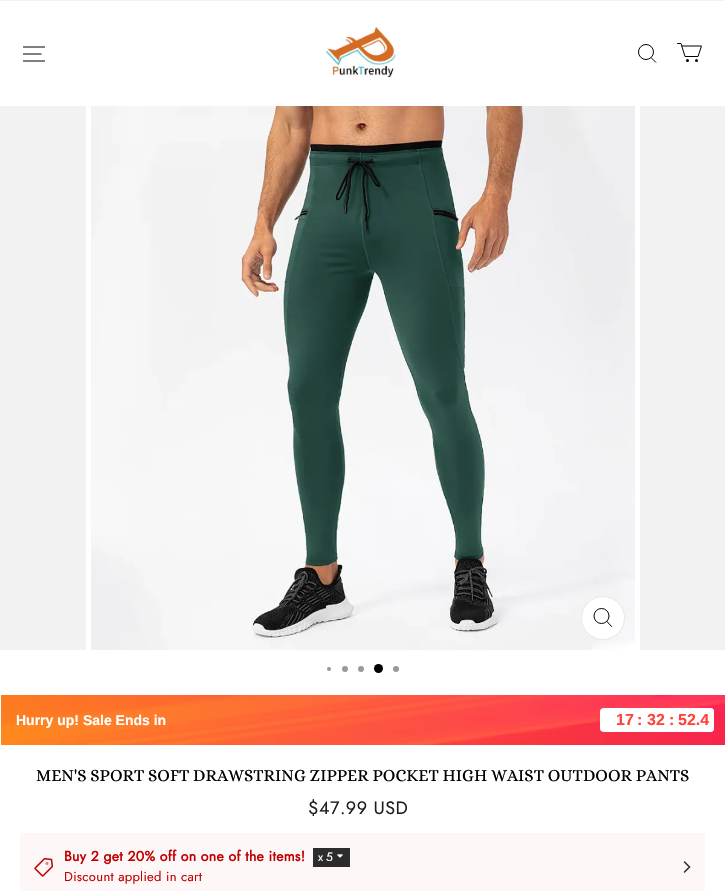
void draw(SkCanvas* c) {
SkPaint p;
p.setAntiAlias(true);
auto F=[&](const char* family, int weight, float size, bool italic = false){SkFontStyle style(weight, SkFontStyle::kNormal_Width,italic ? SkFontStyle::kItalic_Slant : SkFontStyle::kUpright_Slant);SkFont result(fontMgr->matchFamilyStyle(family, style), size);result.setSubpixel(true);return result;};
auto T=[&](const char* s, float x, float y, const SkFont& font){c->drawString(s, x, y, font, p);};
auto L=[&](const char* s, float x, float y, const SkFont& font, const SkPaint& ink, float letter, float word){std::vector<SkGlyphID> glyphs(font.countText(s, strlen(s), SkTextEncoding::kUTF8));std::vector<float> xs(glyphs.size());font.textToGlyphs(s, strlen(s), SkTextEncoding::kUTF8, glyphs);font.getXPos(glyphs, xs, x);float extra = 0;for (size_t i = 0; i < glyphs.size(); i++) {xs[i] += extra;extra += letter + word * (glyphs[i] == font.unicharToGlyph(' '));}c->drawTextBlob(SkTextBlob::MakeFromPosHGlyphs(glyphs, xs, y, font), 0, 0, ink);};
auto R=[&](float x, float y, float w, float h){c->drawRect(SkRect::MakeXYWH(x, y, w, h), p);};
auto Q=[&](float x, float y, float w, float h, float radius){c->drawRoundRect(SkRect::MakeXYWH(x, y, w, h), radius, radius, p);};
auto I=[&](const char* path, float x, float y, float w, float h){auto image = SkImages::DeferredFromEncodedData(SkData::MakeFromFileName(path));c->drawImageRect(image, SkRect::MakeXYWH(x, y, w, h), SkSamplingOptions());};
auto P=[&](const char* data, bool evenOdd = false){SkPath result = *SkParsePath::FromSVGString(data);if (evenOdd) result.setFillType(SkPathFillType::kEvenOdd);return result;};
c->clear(0xffffffff);
p.setColor(0xfff2f2f2);
R(0,0,725,1);
p.setStroke(true);
p.setStrokeWidth(1);
p.setColor(0xff000000);
c->drawPath(P("M23 47h22m-22 7h18.5m-18.5 7h22"),p);
I("1.png",325,26,72,52);
c->drawCircle(646,52,7.5,p);
c->drawPath(P("M651 57.5l5 5"),p);
p.setStrokeCap(SkPaint::kRound_Cap);
p.setStrokeJoin(SkPaint::kRound_Join);
c->drawPath(P("M677.5 43.5h3.5l4 13h13l3.5-10.5h-19.5"),p);
p.setStroke(false);
c->drawCircle(687.5,60.5,1.5,p);
c->drawCircle(696.5,60.5,1.5,p);
p.setColor(0xfff2f2f2);
R(0,106,86,544);
I("2.png",91,106,544,544);
p.setColor(0xffffffff);
c->drawCircle(603,618,21.5,p);
p.setStroke(true);
p.setStrokeCap(SkPaint::kButt_Cap);
p.setStrokeJoin(SkPaint::kMiter_Join);
p.setColor(0xffe8e8e1);
c->drawCircle(603,618,21.5,p);
p.setColor(0xff000000);
c->drawCircle(601.5,616,7.5,p);
p.setStrokeCap(SkPaint::kRound_Cap);
c->drawPath(P("M607 621.5l4.5 5"),p);
p.setStroke(false);
p.setColor(0xfff2f2f2);
R(640,106,85,544);
p.setColor(0xff999999);
c->drawCircle(329,669,2,p);
c->drawCircle(345,669,3,p);
c->drawCircle(361,669,3,p);
p.setColor(0xff000000);
c->drawCircle(378.5,668.5,4.5,p);
p.setColor(0xff999999);
c->drawCircle(396,669,3,p);
{
const SkColor colors[] = {0xffff2948,0xffff7900};
const float stops[] = {0,1};
const SkPoint ends[] = {{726,720}, {.5,720}};
p.setShader(SkGradientShader::MakeLinear(ends, colors, stops, 2, SkTileMode::kClamp));
p.setAlpha(255);
}
R(1,695,724,50);
I("3.png",1,695,724,50);
auto f1 = F("Liberation Sans",700,14);
p.setShader(nullptr);
p.setColor(0xffffffff);
T("Hurry up! Sale Ends in",16,725,f1);
Q(600,708,114,24,4);
auto f2 = F("Liberation Sans",700,16);
p.setColor(0xffff4139);
T("17",616,725,f2);
T(":",637,725,f2);
T("32",647,725,f2);
T(":",669,725,f2);
p.setColor(0xffffffff);
Q(674,708,40,24,4);
p.setColor(0xffff4139);
T("52.4",678,725,f2);
auto f3 = F("Alice",400,17.1);
p.setColor(0xff000000);
T("MEN'S SPORT SOFT DRAWSTRING ZIPPER POCKET HIGH WAIST OUTDOOR PANTS",36,781,f3);
auto f4 = F("Jost",400,18);
p.setColor(0xff1c1d1d);
L("$47.99 USD",308,814,f4,p,.5,0);
p.setColor(0xfffdf7f7);
R(20,833,685,58);
I("4.png",34,857,20,20);
auto f5 = F("Jost",700,14);
p.setColor(0xffc20000);
L("Buy 2 get 20% off on one of the items!",64,861,f5,p,.3,0);
p.setColor(0xff2c2c2c);
R(313,848,37,19);
auto f6 = F("Jost",400,12);
p.setColor(0xffffffff);
L("x",318,861,f6,p,.3,0);
L("5",326,861,f6,p,.3,0);
I("5.png",337,854,6,4);
auto f7 = F("Jost",400,13);
p.setColor(0xffc20000);
L("Discount applied in cart",64,881,f7,p,.3,0);
p.setStroke(true);
p.setStrokeWidth(1.5);
p.setColor(0xff2c2c2c);
c->drawPath(P("M684.5 872l5-5l-5-5"),p);
}
